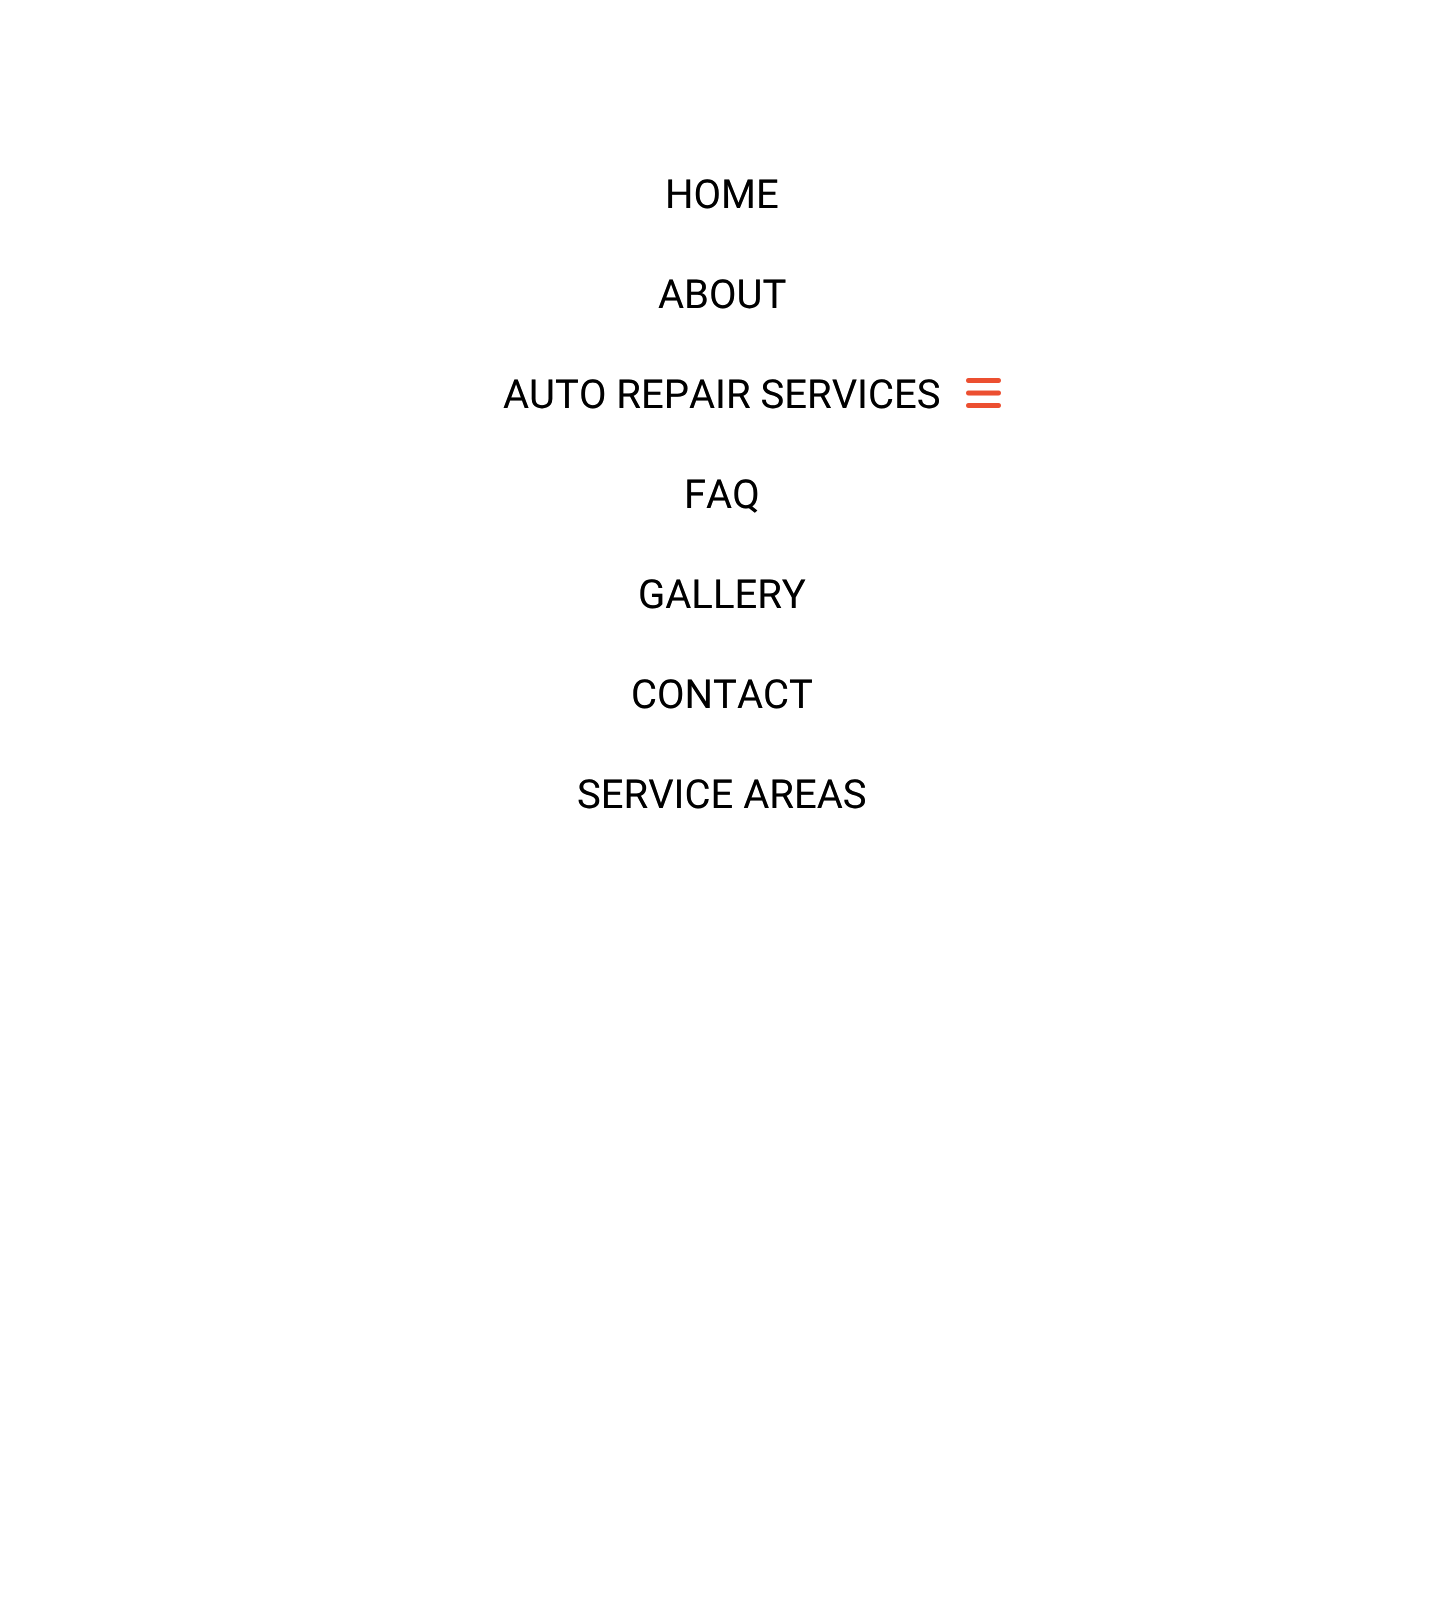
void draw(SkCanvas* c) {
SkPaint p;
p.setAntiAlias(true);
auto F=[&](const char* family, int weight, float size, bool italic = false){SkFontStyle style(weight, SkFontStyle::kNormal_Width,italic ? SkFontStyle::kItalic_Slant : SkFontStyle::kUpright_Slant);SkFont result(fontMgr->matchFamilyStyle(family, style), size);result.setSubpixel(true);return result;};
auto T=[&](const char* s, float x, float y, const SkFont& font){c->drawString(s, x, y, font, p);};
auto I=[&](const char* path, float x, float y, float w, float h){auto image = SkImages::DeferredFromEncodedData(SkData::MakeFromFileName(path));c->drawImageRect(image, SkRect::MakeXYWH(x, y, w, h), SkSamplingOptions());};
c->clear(0xffffffff);
auto f1 = F("Roboto",400,40);
p.setColor(0xff000000);
T("HOME",665,208,f1);
T("ABOUT",658,308,f1);
T("AUTO REPAIR SERVICES",503,408,f1);
I("1.png",966,378,35,30);
T("FAQ",684,508,f1);
T("GALLERY",638,608,f1);
T("CONTACT",631,708,f1);
T("SERVICE AREAS",577,808,f1);
}
